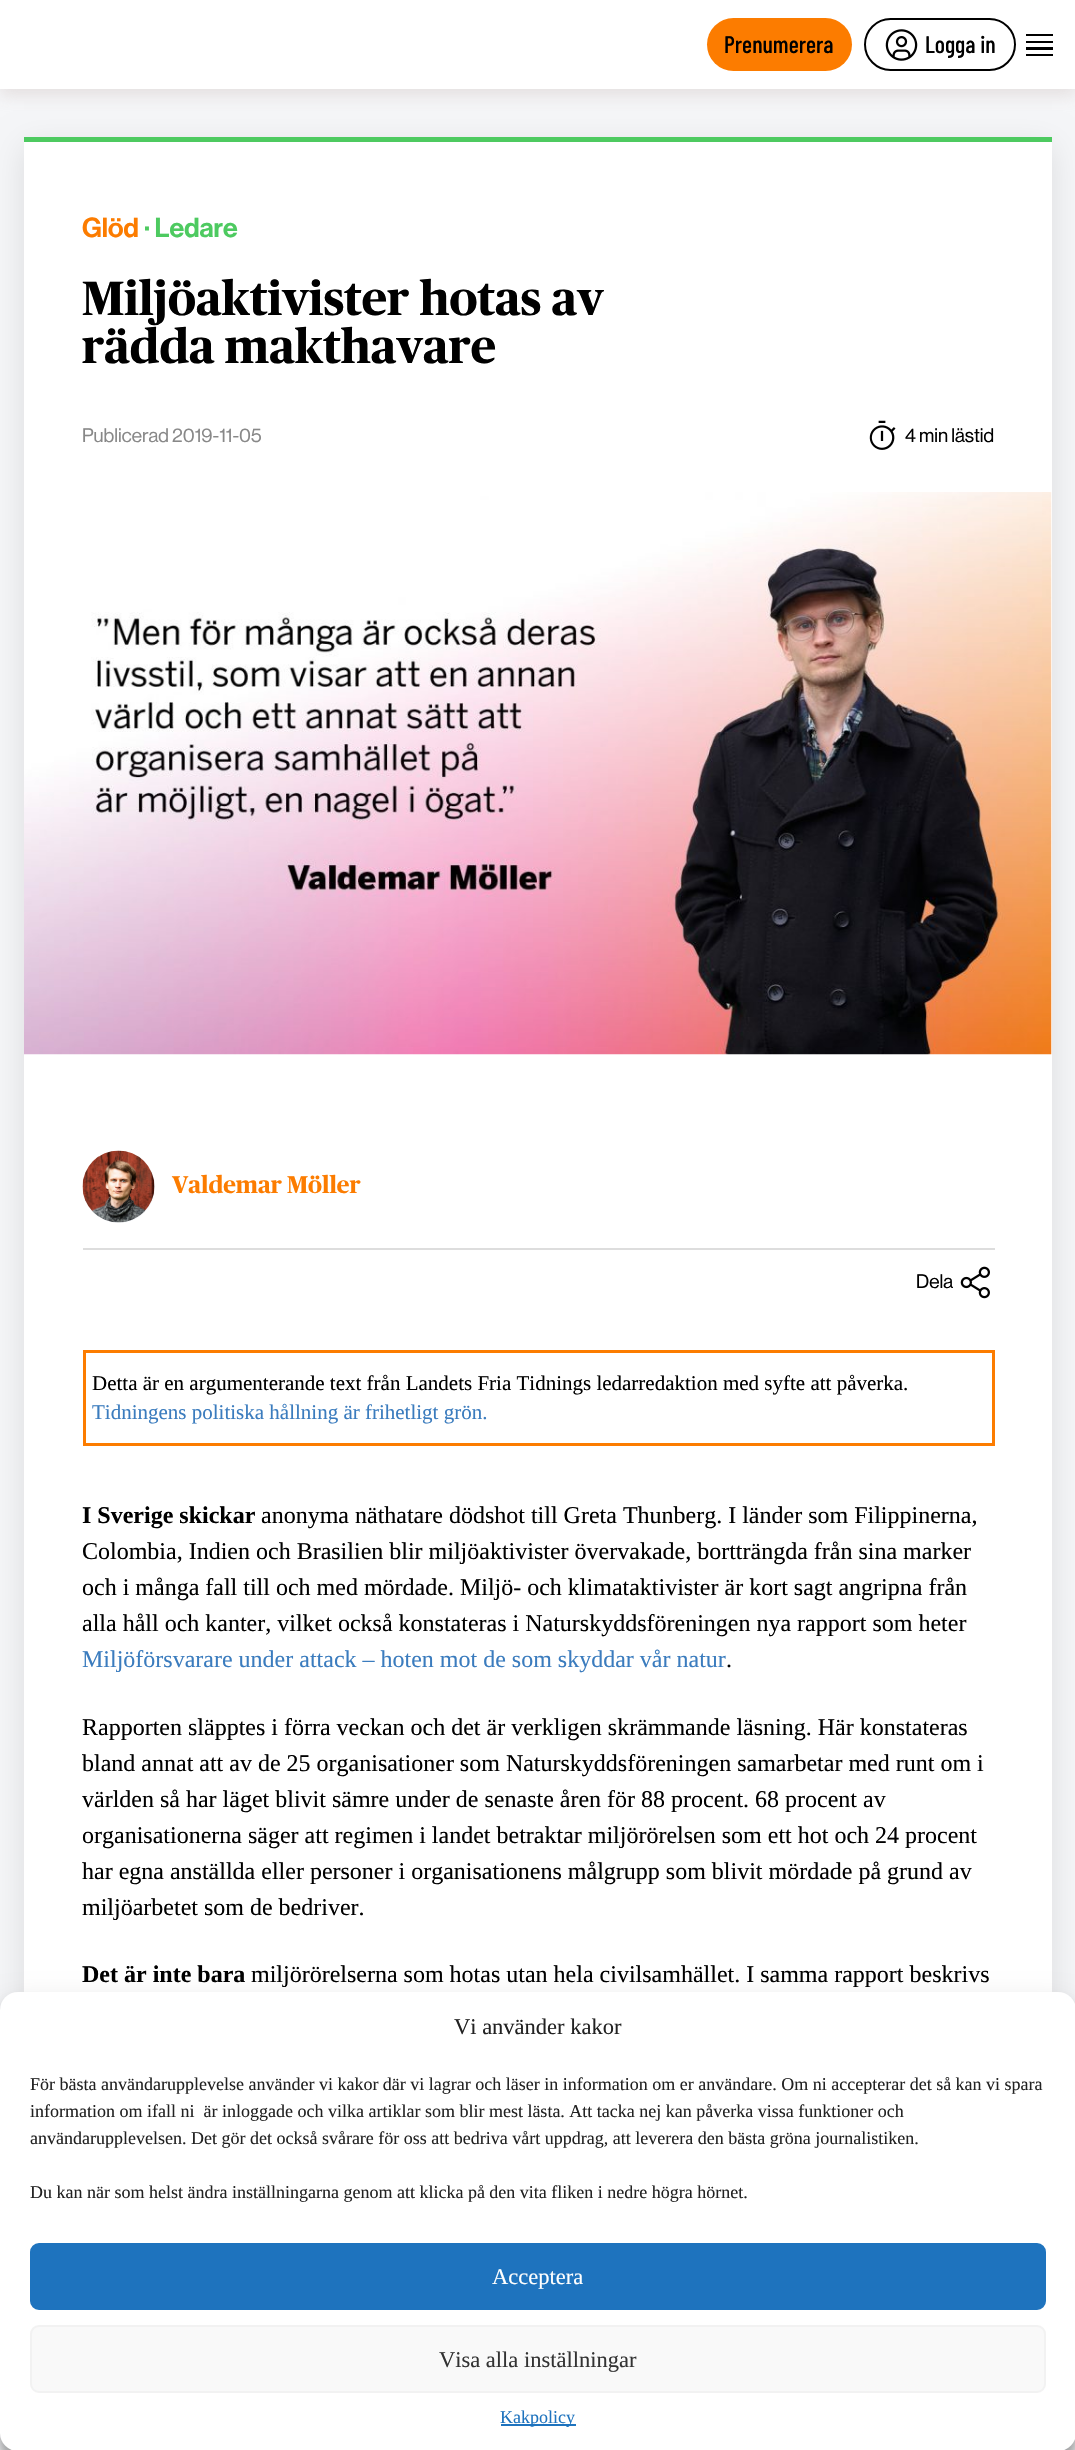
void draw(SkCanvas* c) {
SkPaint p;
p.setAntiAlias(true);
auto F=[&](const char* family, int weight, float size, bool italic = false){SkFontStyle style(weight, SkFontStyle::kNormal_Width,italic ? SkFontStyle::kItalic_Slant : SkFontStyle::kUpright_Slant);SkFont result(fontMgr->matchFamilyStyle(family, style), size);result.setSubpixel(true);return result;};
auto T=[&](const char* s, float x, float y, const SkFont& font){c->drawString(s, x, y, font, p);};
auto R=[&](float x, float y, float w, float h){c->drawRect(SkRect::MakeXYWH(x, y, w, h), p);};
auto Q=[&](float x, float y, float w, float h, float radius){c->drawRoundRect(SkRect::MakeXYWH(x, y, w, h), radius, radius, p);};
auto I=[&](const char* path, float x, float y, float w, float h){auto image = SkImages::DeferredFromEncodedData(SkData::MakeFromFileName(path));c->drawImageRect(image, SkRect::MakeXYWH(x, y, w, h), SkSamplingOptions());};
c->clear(0xfff5f6f8);
p.setColor(0xcce1dbdb);
p.setMaskFilter(SkMaskFilter::MakeBlur(kNormal_SkBlurStyle, 7.5));
c->drawRect(SkRect::MakeXYWH(0,8,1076,88),p);
p.setMaskFilter(nullptr);
p.setColor(0xffffffff);
R(0,0,1075,89);
p.setColor(0xfffc7c00);
Q(707,18,145,53,26.5);
auto f1 = F("Barlow Condensed",500,24);
p.setColor(0xff000000);
T("Prenumerera",724,53,f1);
p.setStroke(true);
p.setStrokeWidth(2);
c->drawRoundRect(SkRect::MakeXYWH(865,19,150,51),25.5,25.5,p);
I("1.png",885,29,33,32);
p.setStroke(false);
T("Logga in",925,53,f1);
R(1026,34,27,2);
R(1026,54,27,2);
R(1026,41,27,2);
R(1026,47,27,3);
p.setColor(0x1a000000);
p.setMaskFilter(SkMaskFilter::MakeBlur(kNormal_SkBlurStyle, 15));
c->drawRect(SkRect::MakeXYWH(24,146,1028,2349),p);
p.setMaskFilter(nullptr);
p.setColor(0xffffffff);
R(24,142,1028,1850);
p.setColor(0xff4dca60);
R(24,137,1028,5);
auto f2 = F("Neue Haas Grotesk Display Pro",500,27);
p.setColor(0xfffc7c00);
T("Glöd",82,237,f2);
p.setColor(0xff4dca60);
T("· Ledare",144,237,f2);
auto f3 = F("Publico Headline",700,48);
p.setColor(0xff000000);
T("Miljöaktivister hotas av",82,315,f3);
T("rädda makthavare",82,363,f3);
auto f4 = F("Neue Haas Grotesk Display Pro",400,19.25);
p.setColor(0xff888888);
T("Publicerad 2019-11-05",82,442,f4);
I("2.png",869,420,27,30);
p.setColor(0xff000000);
T("4 min lästid",905,442,f4);
I("3.png",24,492,1028,563);
p.setColor(0xfff5f6f8);
c->drawCircle(119,1187,36,p);
I("4.png",82,1150,73,73);
auto f5 = F("Publico Headline",700,24);
p.setColor(0xfffc7c00);
T("Valdemar Möller",172,1193,f5);
p.setColor(0xffdddddd);
R(83,1248,912,2);
p.setColor(0xff000000);
T("Dela",916,1288,f4);
I("5.png",960,1266,30,33);
p.setStroke(true);
p.setStrokeWidth(3);
p.setColor(0xfffc7c00);
c->drawRect(SkRect::MakeXYWH(84.5,1351.5,909,93),p);
auto f6 = F("Liberation Serif",400,21);
p.setStroke(false);
p.setColor(0xff000000);
T("Detta är en argumenterande text från Landets Fria Tidnings ledarredaktion med syfte att påverka.",92,1390,f6);
p.setColor(0xff3b7cbe);
T("Tidningens politiska hållning är frihetligt grön.",92,1419,f6);
auto f7 = F("Liberation Serif",700,24);
p.setColor(0xff000000);
T("I Sverige skickar",82,1523,f7);
auto f8 = F("Liberation Serif",400,24);
T("anonyma näthatare dödshot till Greta Thunberg. I länder som Filippinerna,",261,1523,f8);
T("Colombia, Indien och Brasilien blir miljöaktivister övervakade, bortträngda från sina marker",82,1559,f8);
T("och i många fall till och med mördade. Miljö- och klimataktivister är kort sagt angripna från",82,1595,f8);
T("alla håll och kanter, vilket också konstateras i Naturskyddsföreningen nya rapport som heter",82,1631,f8);
p.setColor(0xff3b7cbe);
T("Miljöförsvarare under attack – hoten mot de som skyddar vår natur",82,1667,f8);
p.setColor(0xff000000);
T(".",726,1667,f8);
T("Rapporten släpptes i förra veckan och det är verkligen skrämmande läsning. Här konstateras",82,1735,f8);
T("bland annat att av de 25 organisationer som Naturskyddsföreningen samarbetar med runt om i",82,1771,f8);
T("världen så har läget blivit sämre under de senaste åren för 88 procent. 68 procent av",82,1807,f8);
T("organisationerna säger att regimen i landet betraktar miljörörelsen som ett hot och 24 procent",82,1843,f8);
T("har egna anställda eller personer i organisationens målgrupp som blivit mördade på grund av",82,1879,f8);
T("miljöarbetet som de bedriver.",82,1915,f8);
T("Det är inte bara",82,1982,f7);
T("miljörörelserna som hotas utan hela civilsamhället. I samma rapport beskrivs",251,1982,f8);
p.setColor(0x3b000000);
p.setMaskFilter(SkMaskFilter::MakeBlur(kNormal_SkBlurStyle, 4.5));
c->drawRoundRect(SkRect::MakeXYWH(0,2001,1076,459),18,18,p);
p.setMaskFilter(nullptr);
p.setColor(0x30000000);
p.setMaskFilter(SkMaskFilter::MakeBlur(kNormal_SkBlurStyle, 15));
c->drawRoundRect(SkRect::MakeXYWH(0,2007,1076,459),18,18,p);
p.setMaskFilter(nullptr);
p.setColor(0xffffffff);
Q(0,1992,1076,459,18);
auto f9 = F("Liberation Serif",400,22.5);
p.setColor(0xff222222);
T("Vi använder kakor",454,2034,f9);
auto f10 = F("Liberation Serif",400,18);
T("För bästa användarupplevelse använder vi kakor där vi lagrar och läser in information om er användare. Om ni accepterar det så kan vi spara",30,2090,f10);
T("information om ifall ni  är inloggade och vilka artiklar som blir mest lästa. Att tacka nej kan påverka vissa funktioner och",30,2117,f10);
T("användarupplevelsen. Det gör det också svårare för oss att bedriva vårt uppdrag, att leverera den bästa gröna journalistiken.",30,2144,f10);
T("Du kan när som helst ändra inställningarna genom att klicka på den vita fliken i nedre högra hörnet.",30,2198,f10);
p.setColor(0xff1e73be);
c->drawRoundRect(SkRect::MakeXYWH(31,2244,1014,65),8,8,p);
p.setStroke(true);
p.setStrokeWidth(2);
c->drawRoundRect(SkRect::MakeXYWH(31,2244,1014,65),8,8,p);
p.setStroke(false);
p.setColor(0xffffffff);
T("Acceptera",492,2284,f9);
p.setColor(0xfff9f9f9);
c->drawRoundRect(SkRect::MakeXYWH(31,2326,1014,66),8,8,p);
p.setStroke(true);
p.setColor(0xfff2f2f2);
c->drawRoundRect(SkRect::MakeXYWH(31,2326,1014,66),8,8,p);
p.setStroke(false);
p.setColor(0xff333333);
T("Visa alla inställningar",439,2367,f9);
p.setColor(0xff1e73be);
R(501,2424,75,2);
T("Kakpolicy",500,2423,f10);
}
